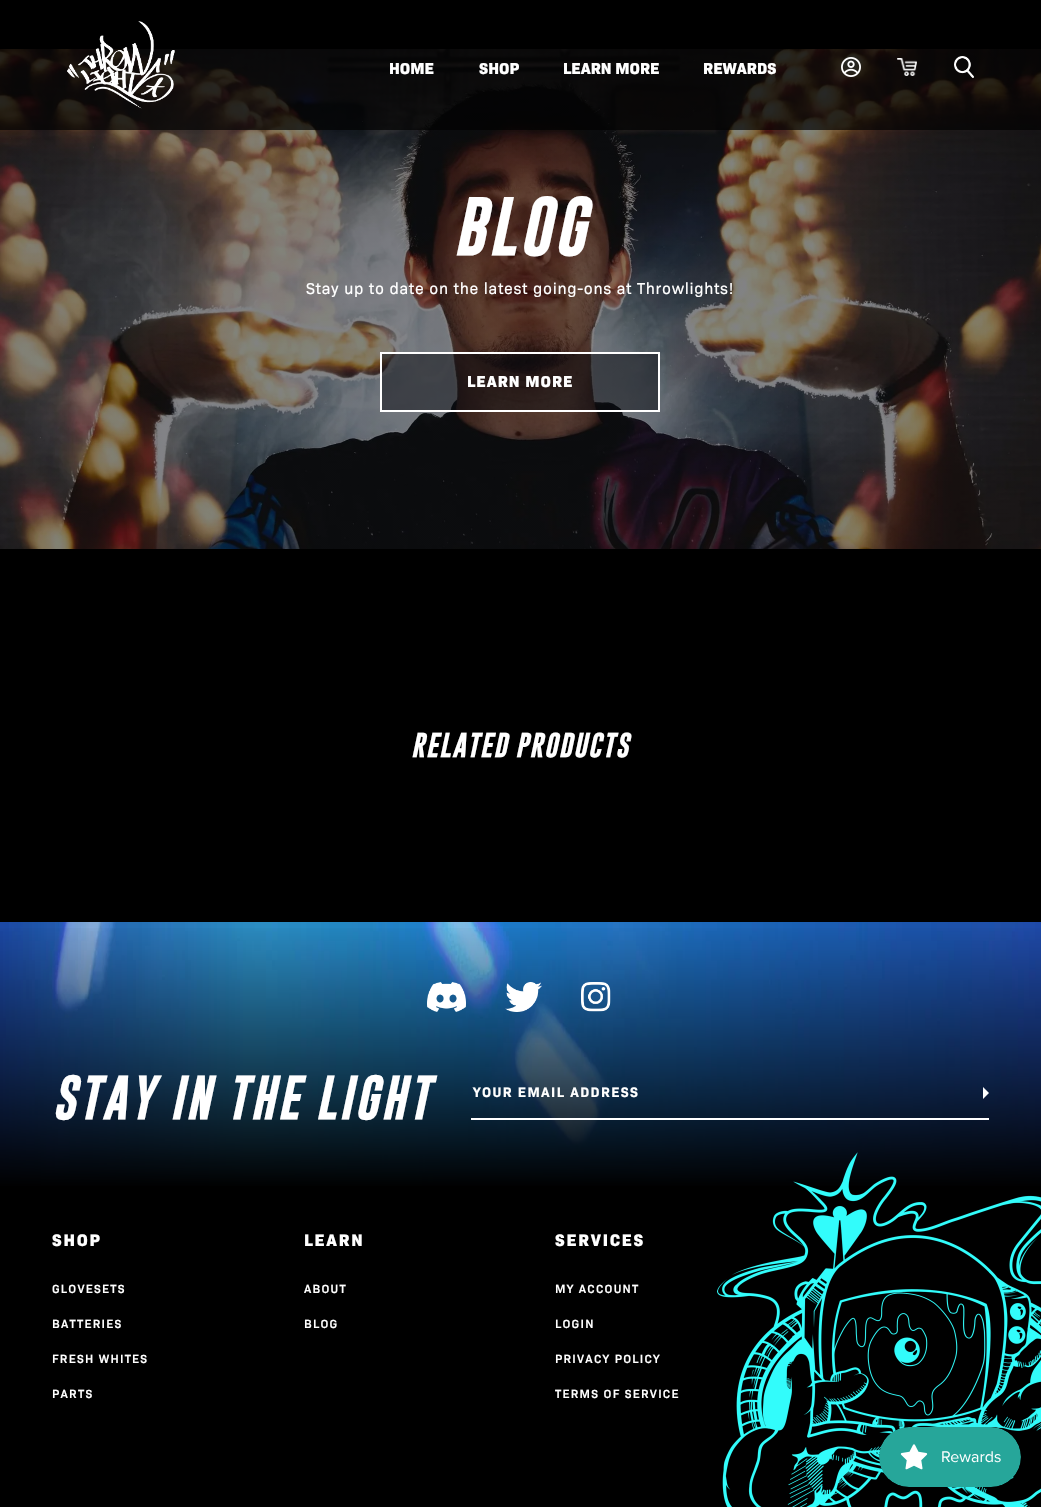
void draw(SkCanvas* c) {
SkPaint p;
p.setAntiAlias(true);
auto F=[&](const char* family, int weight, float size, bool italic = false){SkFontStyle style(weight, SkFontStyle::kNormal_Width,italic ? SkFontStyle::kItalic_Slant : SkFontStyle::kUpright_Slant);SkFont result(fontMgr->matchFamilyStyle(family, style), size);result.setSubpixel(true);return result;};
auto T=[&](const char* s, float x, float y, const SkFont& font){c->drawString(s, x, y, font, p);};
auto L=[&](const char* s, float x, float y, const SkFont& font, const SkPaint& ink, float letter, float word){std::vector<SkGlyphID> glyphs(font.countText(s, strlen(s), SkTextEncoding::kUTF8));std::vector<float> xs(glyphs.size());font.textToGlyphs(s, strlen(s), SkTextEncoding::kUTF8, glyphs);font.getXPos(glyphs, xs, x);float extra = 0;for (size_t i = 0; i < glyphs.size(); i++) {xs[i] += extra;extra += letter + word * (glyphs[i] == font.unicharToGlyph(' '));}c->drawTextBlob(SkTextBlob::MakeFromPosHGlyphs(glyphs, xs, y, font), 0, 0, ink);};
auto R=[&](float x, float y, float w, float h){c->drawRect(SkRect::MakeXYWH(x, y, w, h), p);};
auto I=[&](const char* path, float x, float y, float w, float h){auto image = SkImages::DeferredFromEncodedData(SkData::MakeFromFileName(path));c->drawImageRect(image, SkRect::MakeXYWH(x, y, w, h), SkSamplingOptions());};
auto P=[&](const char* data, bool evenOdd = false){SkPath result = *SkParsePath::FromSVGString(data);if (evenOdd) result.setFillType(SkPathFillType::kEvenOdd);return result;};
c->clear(0xff000000);
I("5.png",0,49,1041,500);
p.setColor(0xb3000000);
R(0,49,1041,81);
I("1.png",67,21,108,88);
auto f1 = F("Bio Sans",800,16);
p.setColor(0xffffffff);
T("HOME",389,74,f1);
T("SHOP",479,74,f1);
T("LEARN MORE",563,74,f1);
T("REWARDS",703,74,f1);
I("2.png",841,57,20,20);
I("3.png",897,58,20,18);
I("4.png",954,56,20,22);
auto f2 = F("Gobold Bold",700,60,true);
L("BLOG",453,255,f2,p,3,0);
auto f3 = F("Bio Sans",400,16);
L("Stay up to date on the latest going-ons at Throwlights!",306,294,f3,p,.67,0);
p.setColor(0x8006070e);
c->drawRect(SkRect::MakeXYWH(381,353,278,58),p);
p.setStroke(true);
p.setStrokeWidth(2);
p.setColor(0xffffffff);
c->drawRect(SkRect::MakeXYWH(381,353,278,58),p);
p.setStroke(false);
L("LEARN MORE",467,387,f1,p,1,0);
auto f4 = F("Gobold Bold",700,25,true);
L("RELATED PRODUCTS",411,757,f4,p,1.25,0);
I("6.png",0,922,1041,264);
{
const SkColor colors[] = {0xff000000,0x00000000};
const float stops[] = {.62,1};
const SkPoint ends[] = {{521,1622}, {521,922}};
p.setShader(SkGradientShader::MakeLinear(ends, colors, stops, 2, SkTileMode::kClamp));
p.setAlpha(255);
}
R(0,928,1041,258);
I("7.png",427,982,39,30);
I("8.png",505,982,37,30);
I("9.png",581,982,30,30);
auto f5 = F("Gobold Bold",700,45,true);
p.setShader(nullptr);
p.setColor(0xffffffff);
L("STAY IN THE LIGHT",52,1119,f5,p,2.5,0);
R(471,1118,518,2);
auto f6 = F("Bio Sans",700,14);
L("YOUR EMAIL ADDRESS",473,1097,f6,p,1.4,0);
c->drawPath(P("M983 1099v-12l6 6z"),p);
auto f7 = F("Bio Sans",800,17);
L("SHOP",52,1246,f7,p,1.75,0);
auto f8 = F("Bio Sans",600,12);
L("GLOVESETS",52,1293,f8,p,1.25,0);
L("BATTERIES",52,1328,f8,p,1.25,0);
L("FRESH WHITES",52,1363,f8,p,1.25,0);
L("PARTS",52,1398,f8,p,1.25,0);
L("LEARN",304,1246,f7,p,1.75,0);
L("ABOUT",304,1293,f8,p,1.25,0);
L("BLOG",304,1328,f8,p,1.25,0);
L("SERVICES",555,1246,f7,p,1.75,0);
L("MY ACCOUNT",555,1293,f8,p,1.25,0);
L("LOGIN",555,1328,f8,p,1.25,0);
L("PRIVACY POLICY",555,1363,f8,p,1.25,0);
L("TERMS OF SERVICE",555,1398,f8,p,1.25,0);
I("10.png",717,1152,324,355);
p.setColor(0x0d000000);
p.setMaskFilter(SkMaskFilter::MakeBlur(kNormal_SkBlurStyle, 12.5));
c->drawRoundRect(SkRect::MakeXYWH(879,1427,142,60),30,30,p);
p.setMaskFilter(nullptr);
I("11.png",879,1427,142,60);
}
